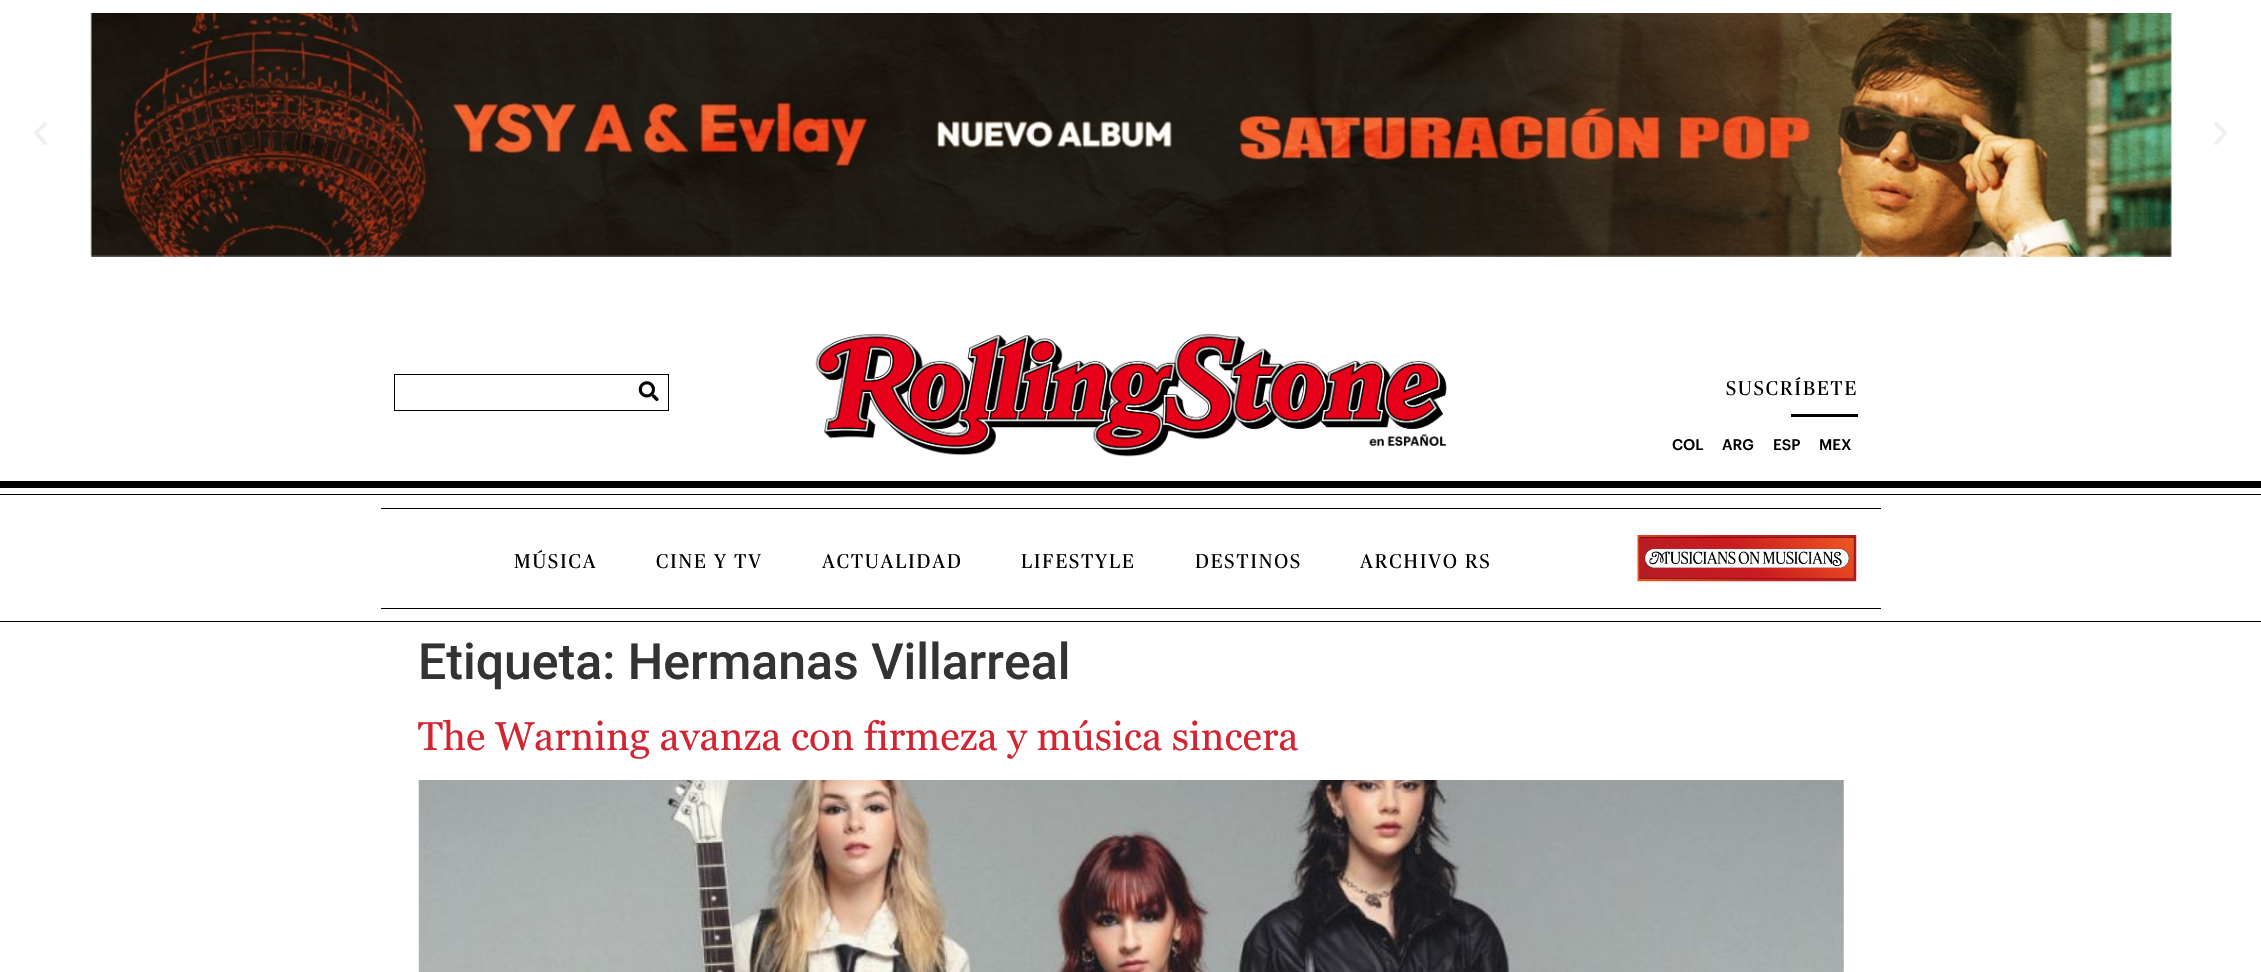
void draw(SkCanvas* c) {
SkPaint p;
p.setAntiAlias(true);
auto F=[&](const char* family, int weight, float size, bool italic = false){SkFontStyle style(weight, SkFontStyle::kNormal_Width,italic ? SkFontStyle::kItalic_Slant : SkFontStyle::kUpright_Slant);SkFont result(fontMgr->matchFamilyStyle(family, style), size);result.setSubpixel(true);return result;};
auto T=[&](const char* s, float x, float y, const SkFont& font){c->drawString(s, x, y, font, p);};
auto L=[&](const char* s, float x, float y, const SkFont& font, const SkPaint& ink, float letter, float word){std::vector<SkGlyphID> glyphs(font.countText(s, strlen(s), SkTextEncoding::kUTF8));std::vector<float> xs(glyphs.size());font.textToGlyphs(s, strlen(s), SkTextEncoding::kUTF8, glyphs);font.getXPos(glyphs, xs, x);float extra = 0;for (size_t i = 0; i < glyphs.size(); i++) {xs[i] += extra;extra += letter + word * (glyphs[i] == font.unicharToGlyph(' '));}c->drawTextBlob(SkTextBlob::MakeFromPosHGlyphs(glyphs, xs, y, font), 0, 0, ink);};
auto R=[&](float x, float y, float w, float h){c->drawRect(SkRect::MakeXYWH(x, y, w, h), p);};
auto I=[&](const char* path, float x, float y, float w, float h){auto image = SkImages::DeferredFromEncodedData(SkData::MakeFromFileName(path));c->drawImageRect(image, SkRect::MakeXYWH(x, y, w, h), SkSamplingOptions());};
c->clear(0xffffffff);
I("1.png",34,122,13,23);
I("2.png",90,13,2082,244);
I("3.png",2214,122,13,23);
p.setStroke(true);
p.setStrokeWidth(1);
p.setColor(0xff000000);
c->drawRect(SkRect::MakeXYWH(394.5,374.5,274,36),p);
I("4.png",638,381,21,21);
I("5.png",815,333,632,124);
auto f1 = F("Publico",400,20);
p.setStroke(false);
L("SUSCRÍBETE",1726,395,f1,p,2,0);
R(1791,414,67,3);
auto f2 = F("Graphik",500,15);
T("COL",1672,450,f2);
T("ARG",1722,450,f2);
T("ESP",1773,450,f2);
T("MEX",1819,450,f2);
R(0,481,2261,7);
R(0,494,2261,1);
R(0,621,2261,1);
R(381,508,1500,1);
R(381,608,1500,1);
L("MÚSICA",514,568,f1,p,2,0);
L("CINE Y TV",656,568,f1,p,2,0);
L("ACTUALIDAD",822,568,f1,p,2,0);
L("LIFESTYLE",1021,568,f1,p,2,0);
L("DESTINOS",1195,568,f1,p,2,0);
L("ARCHIVO RS",1360,568,f1,p,2,0);
I("6.png",1637,535,220,47);
auto f3 = F("Roboto",500,50);
p.setColor(0xff333333);
T("Etiqueta: Hermanas Villarreal",418,679,f3);
auto f4 = F("Georgia",400,40);
p.setColor(0xffd32531);
T("The Warning avanza con firmeza y música sincera",418,750,f4);
I("7.png",418,780,1426,192);
}
